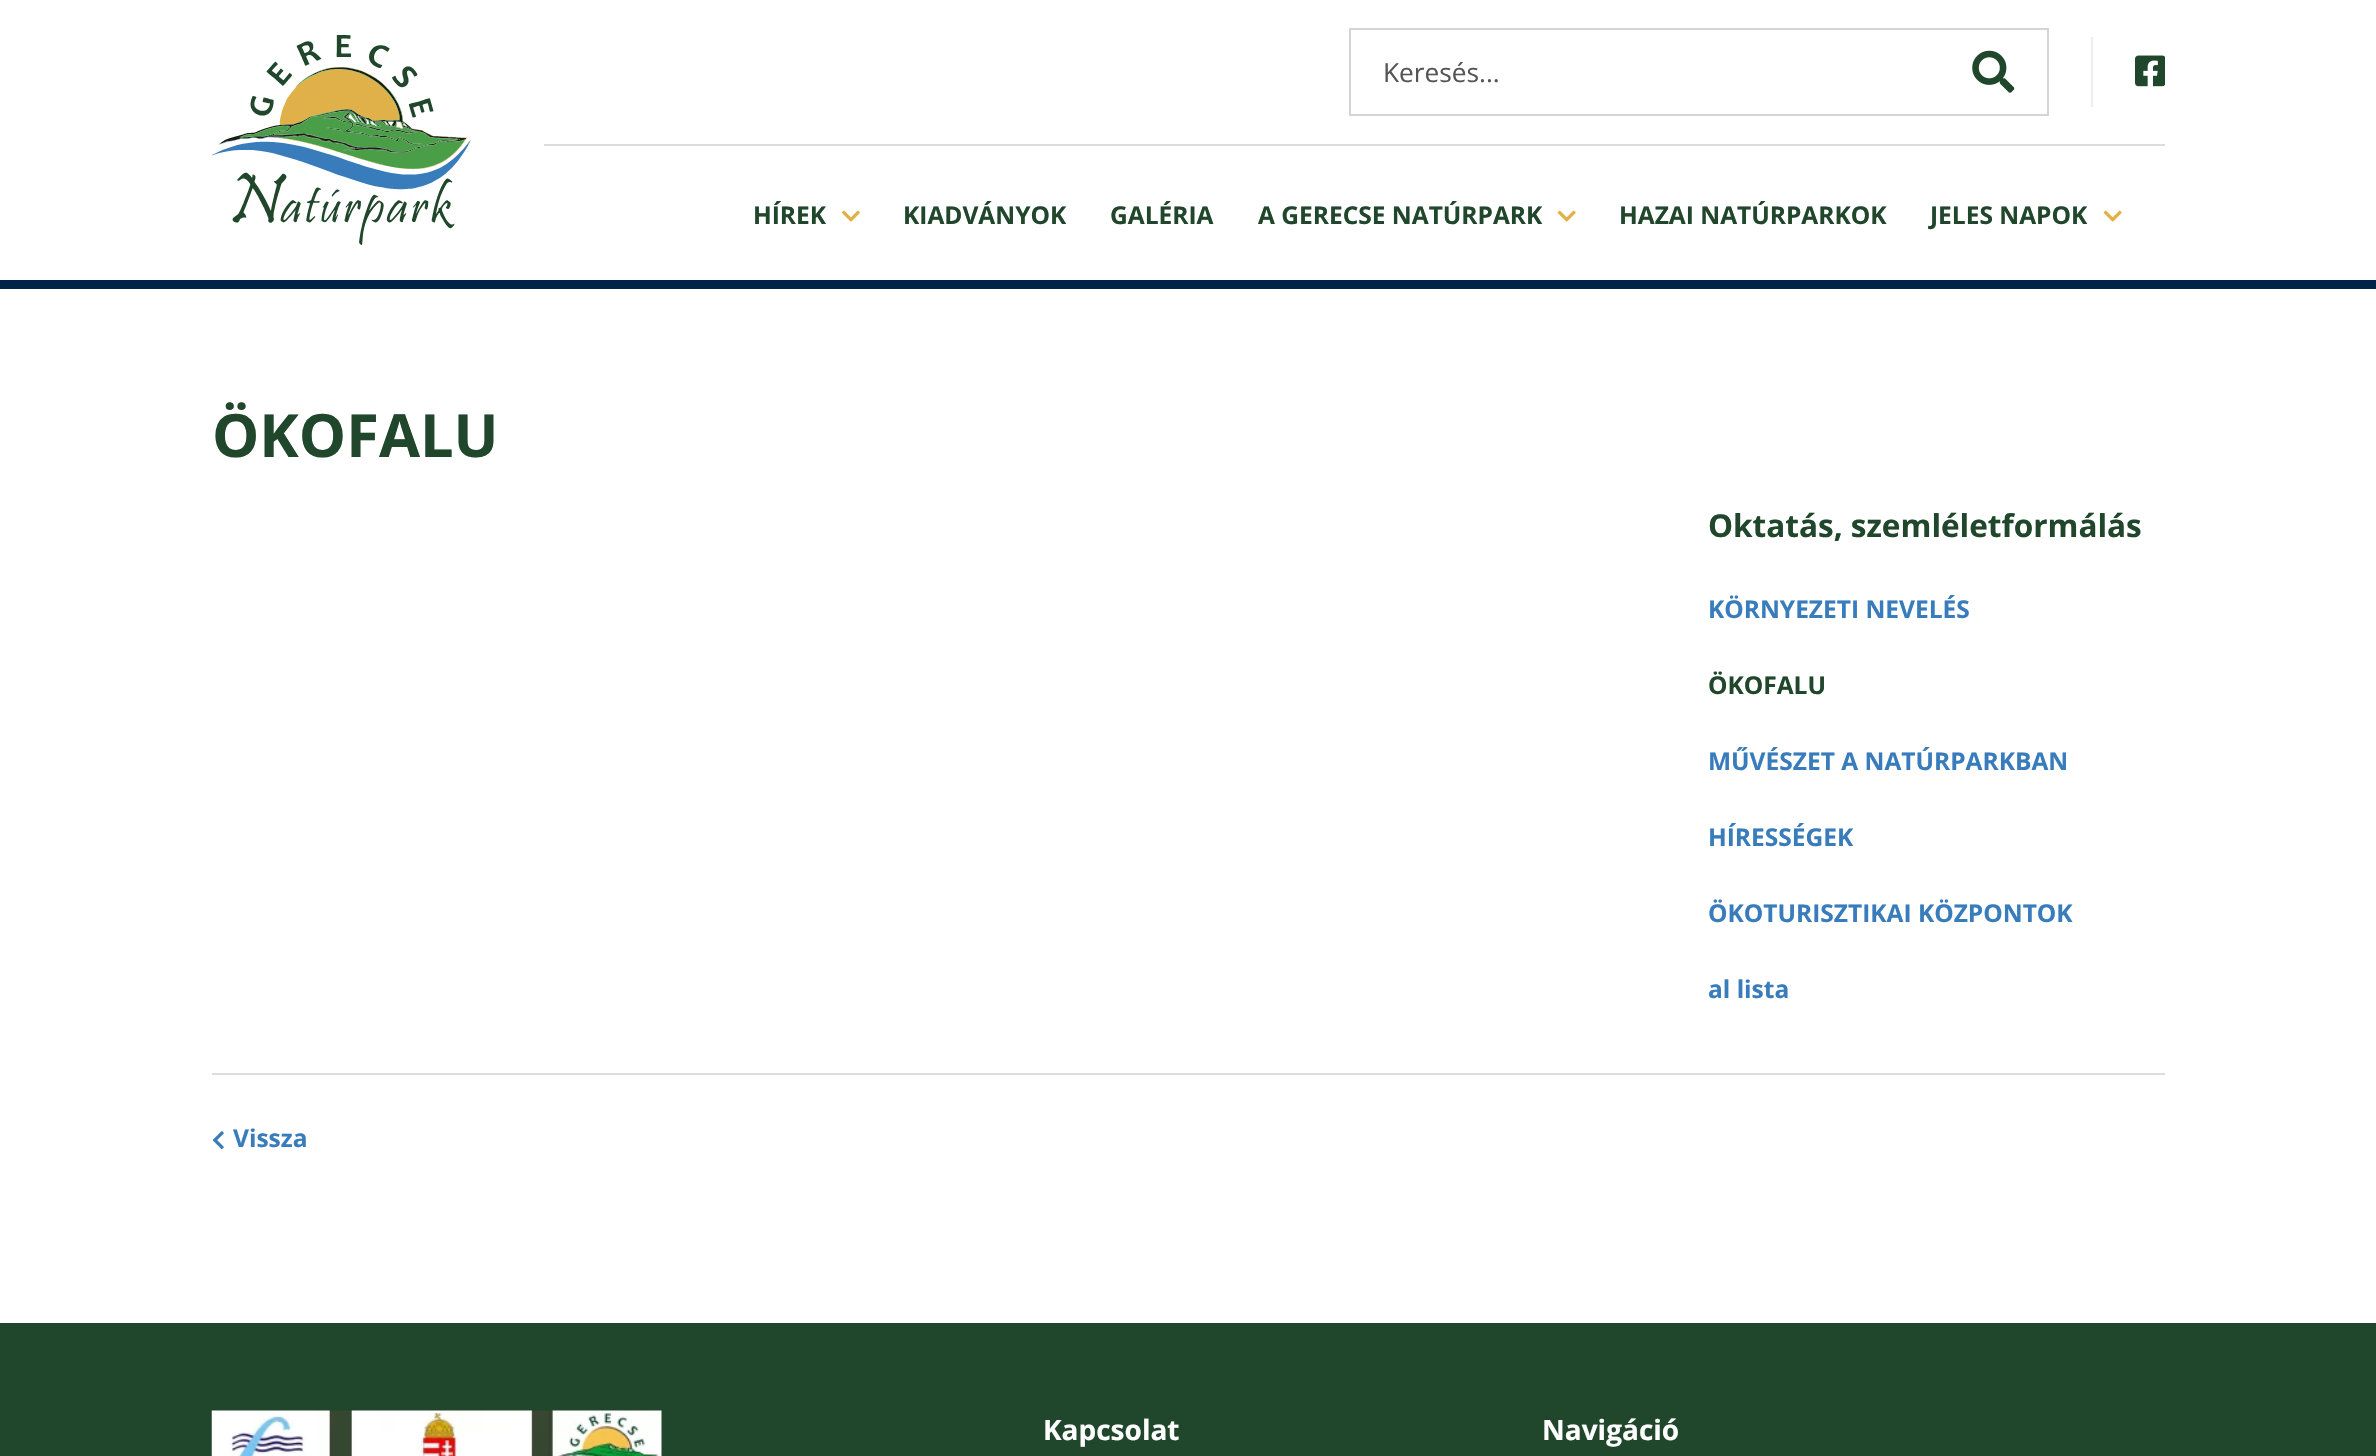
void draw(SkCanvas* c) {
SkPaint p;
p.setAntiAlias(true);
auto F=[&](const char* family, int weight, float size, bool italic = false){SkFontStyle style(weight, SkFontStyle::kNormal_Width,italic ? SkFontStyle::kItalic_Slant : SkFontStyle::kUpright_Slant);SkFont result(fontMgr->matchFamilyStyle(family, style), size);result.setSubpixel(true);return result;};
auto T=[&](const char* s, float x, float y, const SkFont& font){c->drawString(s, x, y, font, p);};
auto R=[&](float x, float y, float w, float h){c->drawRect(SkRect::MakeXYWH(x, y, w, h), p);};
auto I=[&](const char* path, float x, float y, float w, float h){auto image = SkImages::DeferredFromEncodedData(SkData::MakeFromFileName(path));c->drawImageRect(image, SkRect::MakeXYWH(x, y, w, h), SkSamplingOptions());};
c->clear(0xffffffff);
I("1.png",212,35,259,210);
p.setStroke(true);
p.setStrokeWidth(2);
p.setColor(0xffd5d5d5);
c->drawRect(SkRect::MakeXYWH(1350,29,698,86),p);
auto f1 = F("Open Sans",400,26.25);
p.setStroke(false);
p.setColor(0xff555555);
T("Keresés...",1383,82,f1);
I("2.png",1972,50,43,43);
p.setColor(0xffeeeeee);
R(2091,37,2,70);
I("3.png",2135,55,30,32);
p.setColor(0xffdddddd);
R(544,144,1621,2);
auto f2 = F("Open Sans",700,24.5);
p.setColor(0xff20462b);
T("HÍREK",753,224,f2);
I("4.png",842,210,18,12);
T("KIADVÁNYOK",903,224,f2);
T("GALÉRIA",1110,224,f2);
T("A GERECSE NATÚRPARK",1258,224,f2);
I("5.png",1557,210,19,12);
T("HAZAI NATÚRPARKOK",1619,224,f2);
T("JELES NAPOK",1930,224,f2);
I("5.png",2103,210,19,12);
p.setColor(0xff002448);
R(0,280,2376,9);
auto f3 = F("Open Sans",700,59.5);
p.setColor(0xff20462b);
T("ÖKOFALU",212,457,f3);
auto f4 = F("Open Sans",700,31.5);
T("Oktatás, szemléletformálás",1708,537,f4);
p.setColor(0xff397cbc);
T("KÖRNYEZETI NEVELÉS",1708,618,f2);
p.setColor(0xff20462b);
T("ÖKOFALU",1708,694,f2);
p.setColor(0xff397cbc);
T("MŰVÉSZET A NATÚRPARKBAN",1708,770,f2);
T("HÍRESSÉGEK",1708,846,f2);
T("ÖKOTURISZTIKAI KÖZPONTOK",1708,922,f2);
T("al lista",1708,998,f2);
p.setColor(0xffdddddd);
R(212,1073,1953,2);
I("6.png",212,1131,12,19);
p.setColor(0xff397cbc);
T("Vissza",233,1147,f2);
p.setColor(0xff20462b);
R(0,1323,2376,133);
I("7.png",211,1410,451,46);
auto f5 = F("Open Sans",700,28);
p.setColor(0xffffffff);
T("Kapcsolat",1043,1440,f5);
T("Navigáció",1542,1440,f5);
}
